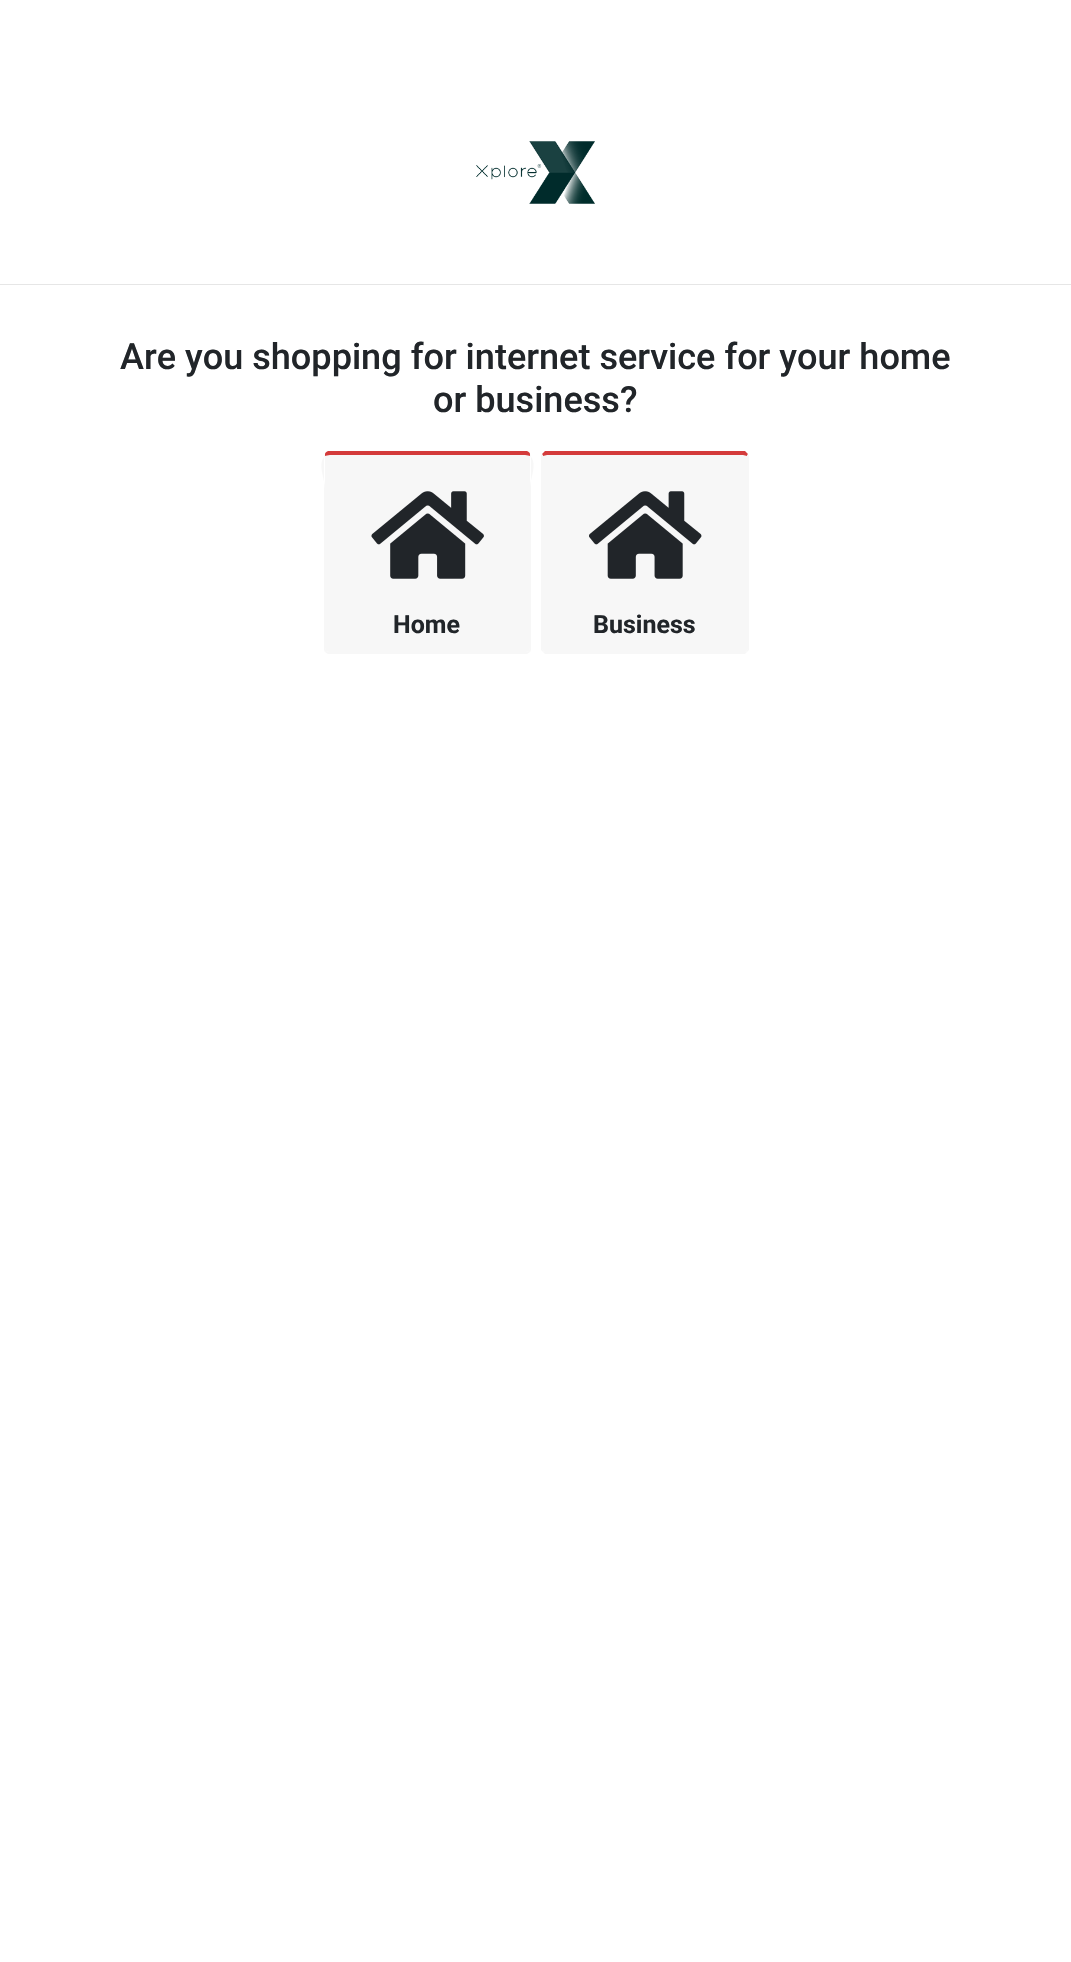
void draw(SkCanvas* c) {
SkPaint p;
p.setAntiAlias(true);
auto F=[&](const char* family, int weight, float size, bool italic = false){SkFontStyle style(weight, SkFontStyle::kNormal_Width,italic ? SkFontStyle::kItalic_Slant : SkFontStyle::kUpright_Slant);SkFont result(fontMgr->matchFamilyStyle(family, style), size);result.setSubpixel(true);return result;};
auto T=[&](const char* s, float x, float y, const SkFont& font){c->drawString(s, x, y, font, p);};
auto R=[&](float x, float y, float w, float h){c->drawRect(SkRect::MakeXYWH(x, y, w, h), p);};
auto I=[&](const char* path, float x, float y, float w, float h){auto image = SkImages::DeferredFromEncodedData(SkData::MakeFromFileName(path));c->drawImageRect(image, SkRect::MakeXYWH(x, y, w, h), SkSamplingOptions());};
auto P=[&](const char* data, bool evenOdd = false){SkPath result = *SkParsePath::FromSVGString(data);if (evenOdd) result.setFillType(SkPathFillType::kEvenOdd);return result;};
c->clear(0xffffffff);
I("1.png",476,141,119,63);
p.setColor(0xffe6e6e6);
R(0,284,1071,1);
auto f1 = F("Roboto",500,36.1);
p.setColor(0xff212529);
T("Are you shopping for internet service for your home",120,369,f1);
T("or business?",433,412,f1);
p.setColor(0xfff7f7f7);
c->drawPath(P("M330 455h195c3 0 5 1 5 2v191c0 2-2 4-5 4h-195c-3 0-5-2-5-4v-191c0-1 2-2 5-2z"),p);
p.setColor(0xffd43b3b);
c->drawPath(P("M330 455c-2 0-4 1-5 1v-2c0-1 1-2 3-3h199c2 1 3 2 3 3v2c-1 0-3-1-5-1z"),p);
p.setColor(0xfff7f7f7);
c->drawPath(P("M530 454l1 3v191c0 1 0 3-1 4l-2-1l2-2v-160c0-11 8-25 0-33z"),p);
c->drawPath(P("M328 654l-3-2l2-1c0 1 2 1 3 1h195c1 0 3 0 3-1l2 1l-3 2z"),p);
c->drawPath(P("M325 652c-1-1-1-3-1-4v-191l1-3v2c-8 8 0 22 0 33v160l2 2z"),p);
I("2.png",371,491,113,88);
auto f2 = F("Roboto",700,25);
p.setColor(0xff212529);
T("Home",393,633,f2);
p.setColor(0xfff7f7f7);
c->drawPath(P("M547 455h196c2 0 5 1 5 2v191c0 2-3 4-5 4h-196c-2 0-5-2-5-4v-191c0-1 3-2 5-2z"),p);
p.setColor(0xffd43b3b);
c->drawPath(P("M547 455l-4 1l-1-2l3-3h200l3 3l-1 2l-4-1z"),p);
p.setColor(0xfff7f7f7);
c->drawPath(P("M749 650l-2 2l-1-1c1-1 2-2 2-3v-191l-1-1l1-2l1 1z"),p);
c->drawPath(P("M545 654l-2-2l1-1l3 1h196l3-1l1 1l-2 2z"),p);
c->drawPath(P("M541 455l1-1l1 2l-1 1v191c0 1 1 2 2 3l-1 1l-2-2z"),p);
I("3.png",589,491,113,88);
p.setColor(0xff212529);
T("Business",593,633,f2);
}
